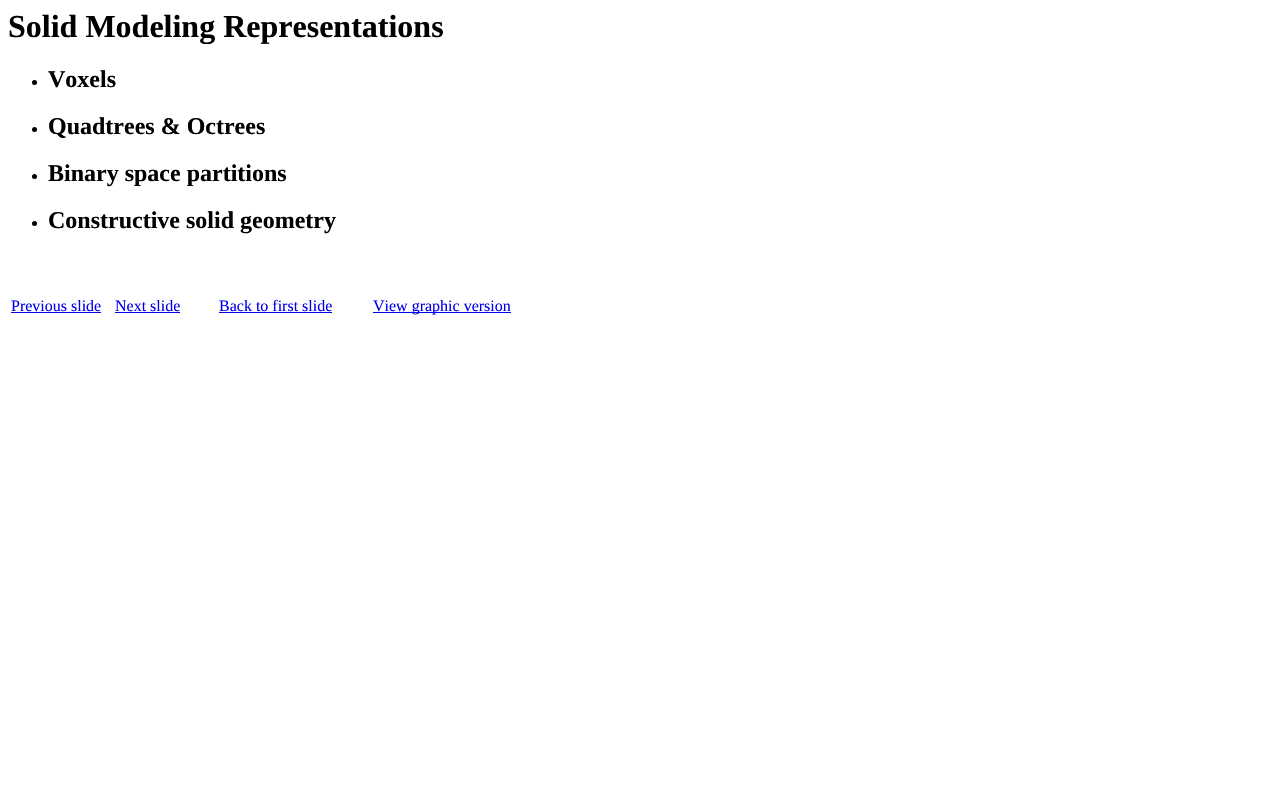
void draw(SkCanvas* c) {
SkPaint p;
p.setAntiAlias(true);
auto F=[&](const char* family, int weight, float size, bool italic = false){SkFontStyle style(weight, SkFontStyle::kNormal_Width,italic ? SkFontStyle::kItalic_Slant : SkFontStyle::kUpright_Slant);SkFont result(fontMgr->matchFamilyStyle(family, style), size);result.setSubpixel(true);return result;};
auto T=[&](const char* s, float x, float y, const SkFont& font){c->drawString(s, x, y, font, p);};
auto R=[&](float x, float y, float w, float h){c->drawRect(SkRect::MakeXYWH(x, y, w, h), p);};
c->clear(0xffffffff);
auto f1 = F("Liberation Serif",700,32);
p.setColor(0xff000000);
T("Solid Modeling Representations",8,37,f1);
c->drawCircle(34.5,82.5,2.5,p);
auto f2 = F("Liberation Serif",700,24);
T("Voxels",48,87,f2);
c->drawCircle(34.5,129.5,2.5,p);
T("Quadtrees & Octrees",48,134,f2);
c->drawCircle(34.5,176.5,2.5,p);
T("Binary space partitions",48,181,f2);
c->drawCircle(34.5,223.5,2.5,p);
T("Constructive solid geometry",48,228,f2);
auto f3 = F("Liberation Serif",400,16);
p.setColor(0xff0000ee);
T("Previous slide",11,311,f3);
R(11,312,90,1);
T("Next slide",115,311,f3);
R(115,312,65,1);
T("Back to first slide",219,311,f3);
R(219,312,113,1);
R(373,312,138,1);
T("View graphic version",373,311,f3);
}
